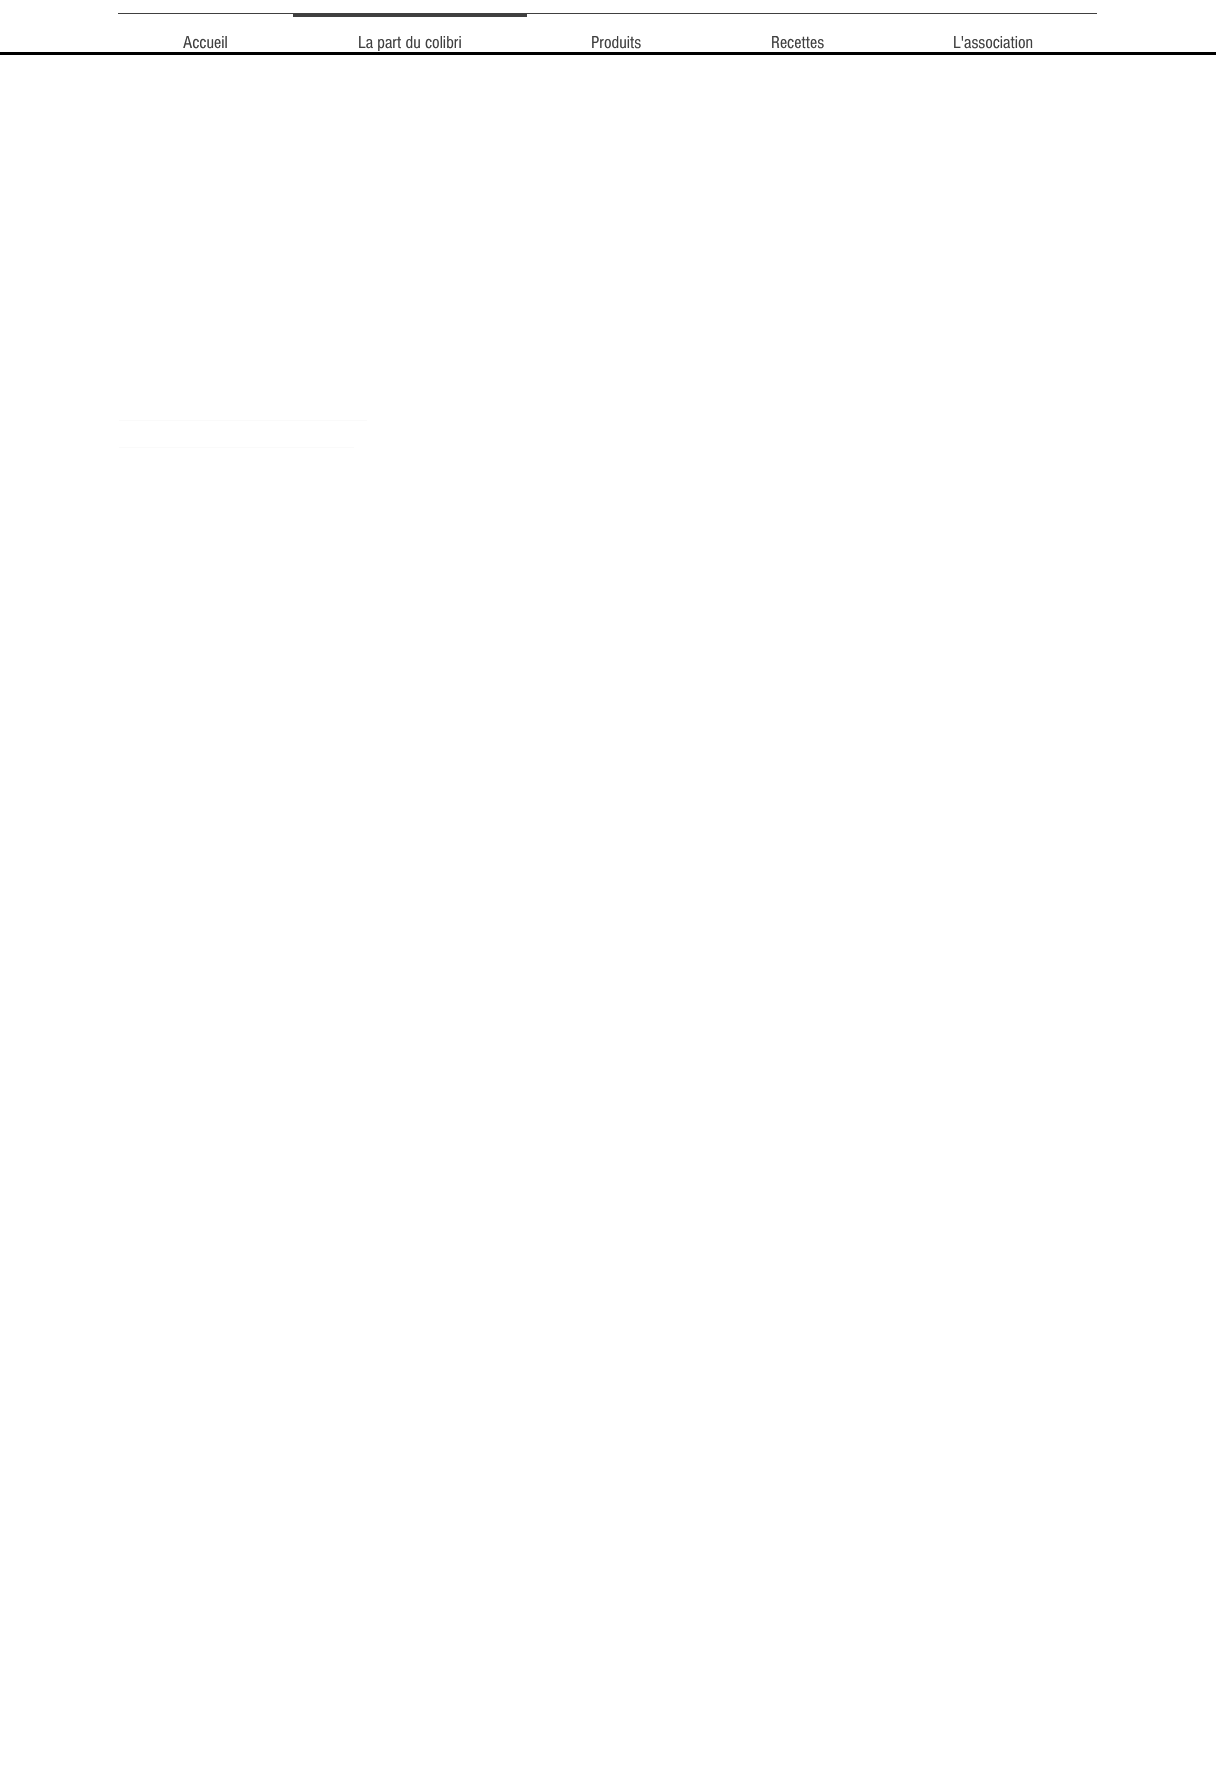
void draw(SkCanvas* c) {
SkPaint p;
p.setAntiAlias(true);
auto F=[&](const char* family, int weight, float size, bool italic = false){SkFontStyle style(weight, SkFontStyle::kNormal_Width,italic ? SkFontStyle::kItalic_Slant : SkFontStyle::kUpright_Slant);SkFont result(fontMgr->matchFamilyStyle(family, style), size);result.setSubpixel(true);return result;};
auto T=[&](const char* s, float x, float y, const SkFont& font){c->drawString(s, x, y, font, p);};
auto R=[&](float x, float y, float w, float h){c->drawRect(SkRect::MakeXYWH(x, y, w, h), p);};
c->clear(0xffffffff);
p.setColor(0xff404040);
R(118,13,175,1);
auto f1 = F("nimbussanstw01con",400,18);
T("Accueil",183,48,f1);
R(293,13,234,4);
T("La part du colibri",358,48,f1);
R(527,13,570,1);
T("Produits",591,48,f1);
T("Recettes",771,48,f1);
T("L'association",953,48,f1);
p.setColor(0xff000000);
R(0,52,1216,3);
p.setColor(0xfffafafa);
R(119,420,248,1);
R(119,447,235,1);
}
